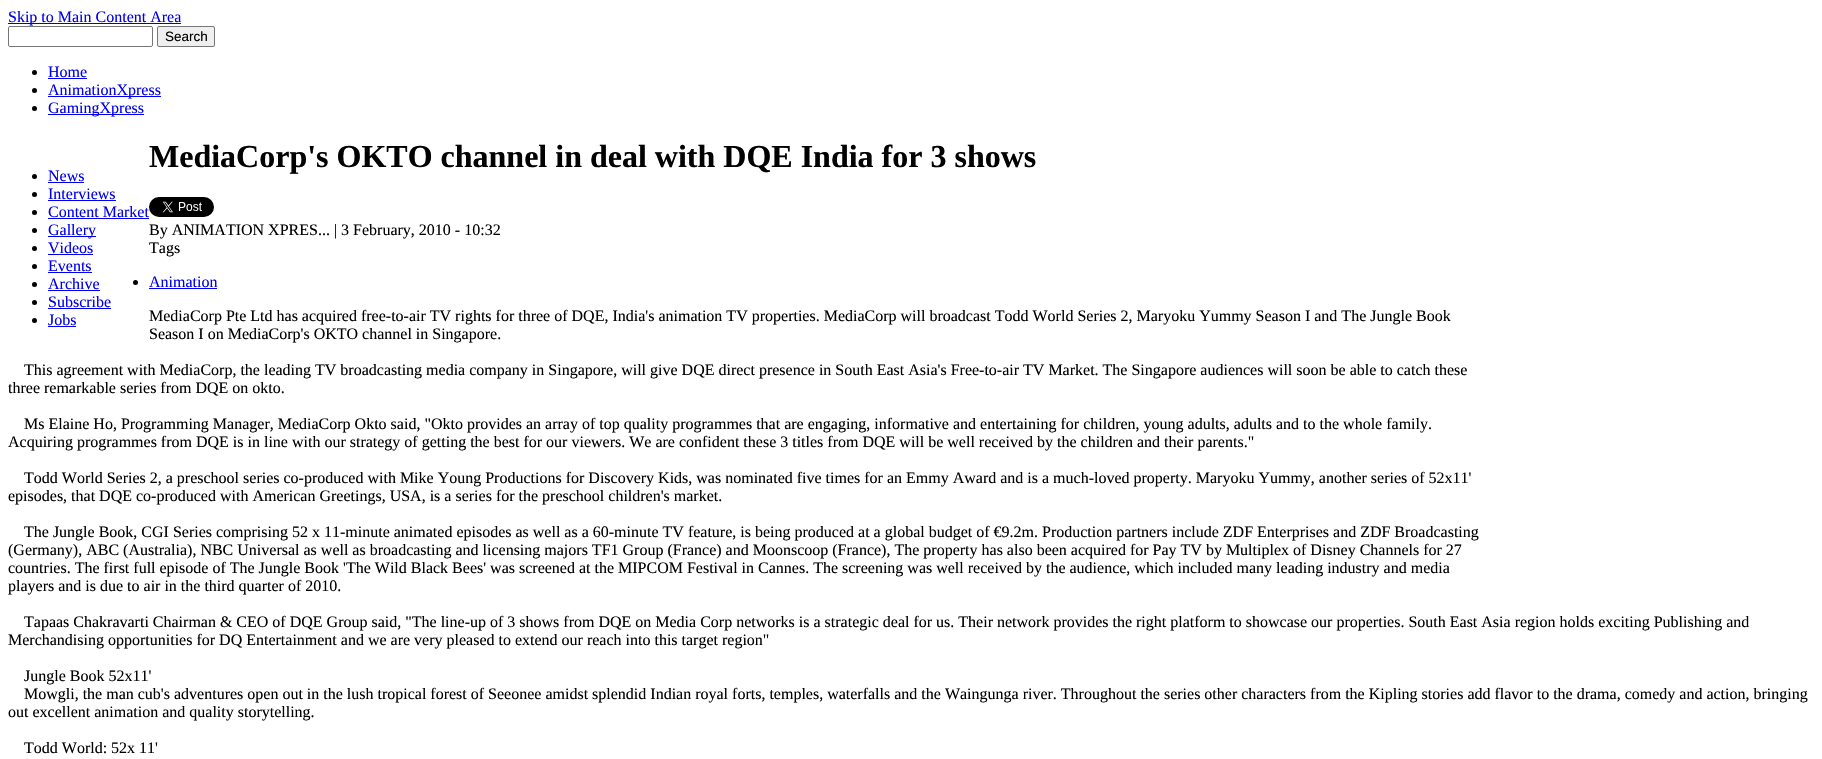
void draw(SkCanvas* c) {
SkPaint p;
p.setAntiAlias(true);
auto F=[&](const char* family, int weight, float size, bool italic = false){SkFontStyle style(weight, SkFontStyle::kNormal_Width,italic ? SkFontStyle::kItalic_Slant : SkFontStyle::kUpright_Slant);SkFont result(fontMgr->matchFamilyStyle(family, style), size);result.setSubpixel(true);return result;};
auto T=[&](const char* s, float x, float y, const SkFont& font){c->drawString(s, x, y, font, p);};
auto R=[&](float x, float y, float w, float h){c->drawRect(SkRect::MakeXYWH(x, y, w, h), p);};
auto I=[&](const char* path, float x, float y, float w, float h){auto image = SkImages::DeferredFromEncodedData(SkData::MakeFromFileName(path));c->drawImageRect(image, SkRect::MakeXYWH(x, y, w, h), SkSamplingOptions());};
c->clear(0xffffffff);
p.setColor(0xff0000ee);
R(8,23,173,1);
auto f1 = F("Liberation Serif",400,16);
T("Skip to Main Content Area",8,22,f1);
p.setStroke(true);
p.setStrokeWidth(1);
p.setColor(0xff767676);
c->drawRoundRect(SkRect::MakeXYWH(8.5,26.5,144,20),1.5,1.5,p);
p.setStroke(false);
p.setColor(0xffefefef);
c->drawRoundRect(SkRect::MakeXYWH(157.5,26.5,57,20),1.5,1.5,p);
p.setStroke(true);
p.setColor(0xff767676);
c->drawRoundRect(SkRect::MakeXYWH(157.5,26.5,57,20),1.5,1.5,p);
auto f2 = F("Liberation Sans",400,13.5);
p.setStroke(false);
p.setColor(0xff000000);
T("Search",165,41,f2);
c->drawCircle(34.5,72.5,2.5,p);
p.setColor(0xff0000ee);
T("Home",48,77,f1);
R(48,78,39,1);
p.setColor(0xff000000);
c->drawCircle(34.5,90.5,2.5,p);
p.setColor(0xff0000ee);
R(48,96,113,1);
T("AnimationXpress",48,95,f1);
p.setColor(0xff000000);
c->drawCircle(34.5,108.5,2.5,p);
p.setColor(0xff0000ee);
R(48,114,96,1);
T("GamingXpress",48,113,f1);
p.setColor(0xff000000);
c->drawCircle(34.5,176.5,2.5,p);
p.setColor(0xff0000ee);
T("News",48,181,f1);
R(48,182,36,1);
p.setColor(0xff000000);
c->drawCircle(34.5,194.5,2.5,p);
p.setColor(0xff0000ee);
T("Interviews",48,199,f1);
R(48,200,68,1);
p.setColor(0xff000000);
c->drawCircle(34.5,212.5,2.5,p);
p.setColor(0xff0000ee);
T("Content Market",48,217,f1);
R(48,218,101,1);
p.setColor(0xff000000);
c->drawCircle(34.5,230.5,2.5,p);
p.setColor(0xff0000ee);
R(48,236,48,1);
T("Gallery",48,235,f1);
p.setColor(0xff000000);
c->drawCircle(34.5,248.5,2.5,p);
p.setColor(0xff0000ee);
T("Videos",48,253,f1);
R(48,254,45,1);
p.setColor(0xff000000);
c->drawCircle(34.5,266.5,2.5,p);
p.setColor(0xff0000ee);
T("Events",48,271,f1);
R(48,272,44,1);
p.setColor(0xff000000);
c->drawCircle(34.5,284.5,2.5,p);
p.setColor(0xff0000ee);
T("Archive",48,289,f1);
R(48,290,52,1);
p.setColor(0xff000000);
c->drawCircle(34.5,302.5,2.5,p);
p.setColor(0xff0000ee);
T("Subscribe",48,307,f1);
R(48,308,63,1);
p.setColor(0xff000000);
c->drawCircle(34.5,320.5,2.5,p);
p.setColor(0xff0000ee);
T("Jobs",48,325,f1);
R(48,326,28,1);
auto f3 = F("Liberation Serif",700,32);
p.setColor(0xff000000);
T("MediaCorp's OKTO channel in deal with DQE India for 3 shows",149,167,f3);
I("1.png",149,197,65,20);
T("By ANIMATION XPRES... | 3 February, 2010 - 10:32",149,235,f1);
T("Tags",149,253,f1);
c->drawCircle(135.5,282.5,2.5,p);
p.setColor(0xff0000ee);
T("Animation",149,287,f1);
R(149,288,68,1);
p.setColor(0xff000000);
T("MediaCorp Pte Ltd has acquired free-to-air TV rights for three of DQE, India's animation TV properties. MediaCorp will broadcast Todd World Series 2, Maryoku Yummy Season I and The Jungle Book",149,321,f1);
T("Season I on MediaCorp's OKTO channel in Singapore.",149,339,f1);
T("This agreement with MediaCorp, the leading TV broadcasting media company in Singapore, will give DQE direct presence in South East Asia's Free-to-air TV Market. The Singapore audiences will soon be able to catch these",24,375,f1);
T("three remarkable series from DQE on okto.",8,393,f1);
T("Ms Elaine Ho, Programming Manager, MediaCorp Okto said, \"Okto provides an array of top quality programmes that are engaging, informative and entertaining for children, young adults, adults and to the whole family.",24,429,f1);
T("Acquiring programmes from DQE is in line with our strategy of getting the best for our viewers. We are confident these 3 titles from DQE will be well received by the children and their parents.\"",8,447,f1);
T("Todd World Series 2, a preschool series co-produced with Mike Young Productions for Discovery Kids, was nominated five times for an Emmy Award and is a much-loved property. Maryoku Yummy, another series of 52x11'",24,483,f1);
T("episodes, that DQE co-produced with American Greetings, USA, is a series for the preschool children's market.",8,501,f1);
T("The Jungle Book, CGI Series comprising 52 x 11-minute animated episodes as well as a 60-minute TV feature, is being produced at a global budget of €9.2m. Production partners include ZDF Enterprises and ZDF Broadcasting",24,537,f1);
T("(Germany), ABC (Australia), NBC Universal as well as broadcasting and licensing majors TF1 Group (France) and Moonscoop (France), The property has also been acquired for Pay TV by Multiplex of Disney Channels for 27",8,555,f1);
T("countries. The first full episode of The Jungle Book 'The Wild Black Bees' was screened at the MIPCOM Festival in Cannes. The screening was well received by the audience, which included many leading industry and media",8,573,f1);
T("players and is due to air in the third quarter of 2010.",8,591,f1);
T("Tapaas Chakravarti Chairman & CEO of DQE Group said, \"The line-up of 3 shows from DQE on Media Corp networks is a strategic deal for us. Their network provides the right platform to showcase our properties. South East Asia region holds exciting Publishing and",24,627,f1);
T("Merchandising opportunities for DQ Entertainment and we are very pleased to extend our reach into this target region\"",8,645,f1);
T("Jungle Book 52x11'",24,681,f1);
T("Mowgli, the man cub's adventures open out in the lush tropical forest of Seeonee amidst splendid Indian royal forts, temples, waterfalls and the Waingunga river. Throughout the series other characters from the Kipling stories add flavor to the drama, comedy and action, bringing",24,699,f1);
T("out excellent animation and quality storytelling.",8,717,f1);
T("Todd World: 52x 11'",24,753,f1);
}
